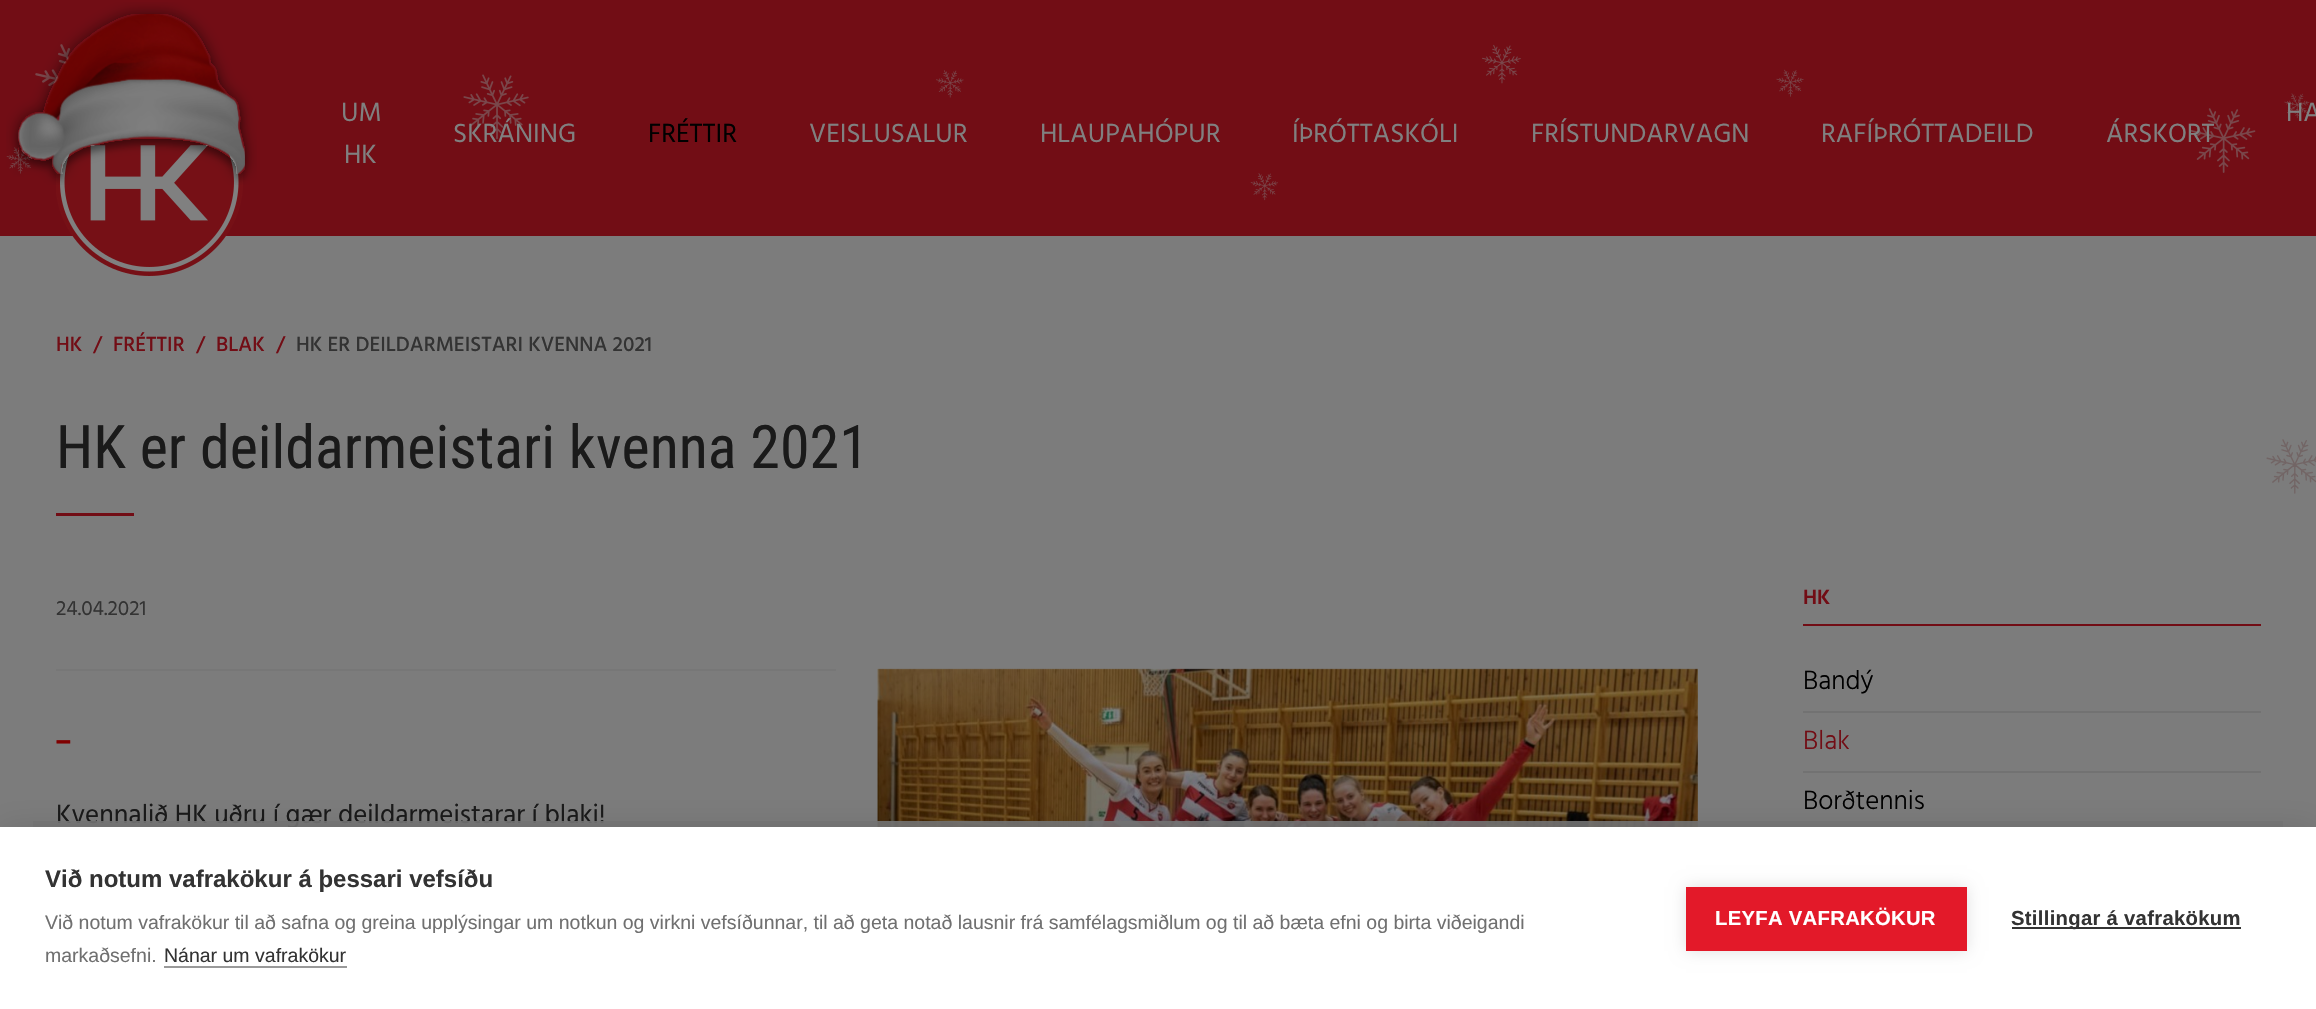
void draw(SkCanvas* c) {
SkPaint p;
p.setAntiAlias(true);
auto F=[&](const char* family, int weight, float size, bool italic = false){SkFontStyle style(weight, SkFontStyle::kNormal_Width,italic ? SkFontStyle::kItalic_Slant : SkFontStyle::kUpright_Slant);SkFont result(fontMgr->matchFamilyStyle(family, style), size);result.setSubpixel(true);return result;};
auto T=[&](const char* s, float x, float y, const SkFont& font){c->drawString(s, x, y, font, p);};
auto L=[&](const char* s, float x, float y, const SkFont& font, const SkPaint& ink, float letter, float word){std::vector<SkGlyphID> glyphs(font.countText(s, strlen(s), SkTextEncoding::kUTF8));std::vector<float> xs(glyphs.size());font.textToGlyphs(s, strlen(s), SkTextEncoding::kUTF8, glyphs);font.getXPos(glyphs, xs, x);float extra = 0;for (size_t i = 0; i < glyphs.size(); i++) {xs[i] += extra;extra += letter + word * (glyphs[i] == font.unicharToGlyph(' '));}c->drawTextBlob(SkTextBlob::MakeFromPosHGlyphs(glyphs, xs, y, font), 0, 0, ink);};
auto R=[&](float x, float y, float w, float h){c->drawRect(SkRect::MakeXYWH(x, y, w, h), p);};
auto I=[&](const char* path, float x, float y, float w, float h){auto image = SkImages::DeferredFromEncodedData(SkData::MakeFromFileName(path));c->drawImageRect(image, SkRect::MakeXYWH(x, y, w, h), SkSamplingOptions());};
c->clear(0xff7c7c7c);
p.setColor(0xff720d15);
R(0,0,2316,236);
auto f1 = F("Hind",400,27);
p.setColor(0xff808080);
T("UM",341,121,f1);
T("HK",344,163,f1);
T("HA",2286,121,f1);
T("SKRÁNING",453,142,f1);
p.setColor(0xff000000);
T("FRÉTTIR",648,142,f1);
p.setColor(0xff808080);
T("VEISLUSALUR",809,142,f1);
T("HLAUPAHÓPUR",1040,142,f1);
T("ÍÞRÓTTASKÓLI",1292,142,f1);
T("FRÍSTUNDARVAGN",1531,142,f1);
T("RAFÍÞRÓTTADEILD",1821,142,f1);
T("ÁRSKORT",2106,142,f1);
I("1.png",6,44,2304,157);
I("3.png",56,135,187,141);
I("2.png",6,2,251,183);
auto f2 = F("Hind",500,21);
p.setColor(0xff720d15);
T("HK",56,351,f2);
T("/",93,351,f2);
T("FRÉTTIR",113,351,f2);
T("/",196,351,f2);
T("BLAK",216,351,f2);
T("/",276,351,f2);
p.setColor(0xff333333);
T("HK ER DEILDARMEISTARI KVENNA 2021",296,351,f2);
auto f3 = F("Roboto Condensed",400,60);
p.setColor(0xff1a1a1a);
T("HK er deildarmeistari kvenna 2021",56,468,f3);
p.setColor(0xff720d15);
R(56,513,78,3);
auto f4 = F("Hind",400,21);
p.setColor(0xff333333);
T("24.04.2021",56,615,f4);
p.setColor(0xff777777);
R(56,669,780,2);
I("4.png",877,668,821,159);
auto f5 = F("Hind",700,27);
p.setColor(0xff800000);
T("_",56,739,f5);
p.setColor(0xff1a1a1a);
T("Kvennalið HK uðru í gær deildarmeistarar í blaki!",56,823,f1);
p.setColor(0xff720d15);
R(1803,624,458,2);
auto f6 = F("Hind",600,21);
T("HK",1803,604,f6);
p.setColor(0xff727272);
R(1803,711,458,2);
auto f7 = F("Hind",300,27);
p.setColor(0xff000000);
T("Bandý",1803,689,f7);
p.setColor(0xff727272);
R(1803,771,458,2);
p.setColor(0xff720d15);
T("Blak",1803,749,f7);
p.setColor(0xff000000);
T("Borðtennis",1803,809,f7);
I("5.png",2266,439,50,55);
p.setColor(0xe6777777);
R(33,821,2250,6);
p.setColor(0x1a000000);
p.setMaskFilter(SkMaskFilter::MakeBlur(kNormal_SkBlurStyle, 15));
c->drawRect(SkRect::MakeXYWH(0,827,2316,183),p);
p.setMaskFilter(nullptr);
p.setColor(0xffffffff);
R(0,827,2316,182);
auto f8 = F("Liberation Sans",700,24);
p.setColor(0xff333333);
T("Við notum vafrakökur á þessari vefsíðu",45,887,f8);
auto f9 = F("Liberation Sans",400,19.5);
p.setColor(0xff707070);
T("Við notum vafrakökur til að safna og greina upplýsingar um notkun og virkni vefsíðunnar, til að geta notað lausnir frá samfélagsmiðlum og til að bæta efni og birta viðeigandi",45,929,f9);
T("markaðsefni.",45,962,f9);
p.setColor(0xff333333);
T("Nánar um vafrakökur",164,962,f9);
p.setColor(0xff999999);
R(164,966,183,2);
p.setColor(0x1f000000);
p.setMaskFilter(SkMaskFilter::MakeBlur(kNormal_SkBlurStyle, 7.5));
c->drawRect(SkRect::MakeXYWH(1686,887,281,64),p);
p.setMaskFilter(nullptr);
p.setColor(0xffe31929);
R(1686,887,281,64);
auto f10 = F("Liberation Sans",700,20.25);
p.setColor(0xffffffff);
L("LEYFA VAFRAKÖKUR",1715,925,f10,p,.3,0);
p.setColor(0xff333333);
R(2012,927,229,2);
L("Stillingar á vafrakökum",2011,925,f10,p,.3,0);
}
